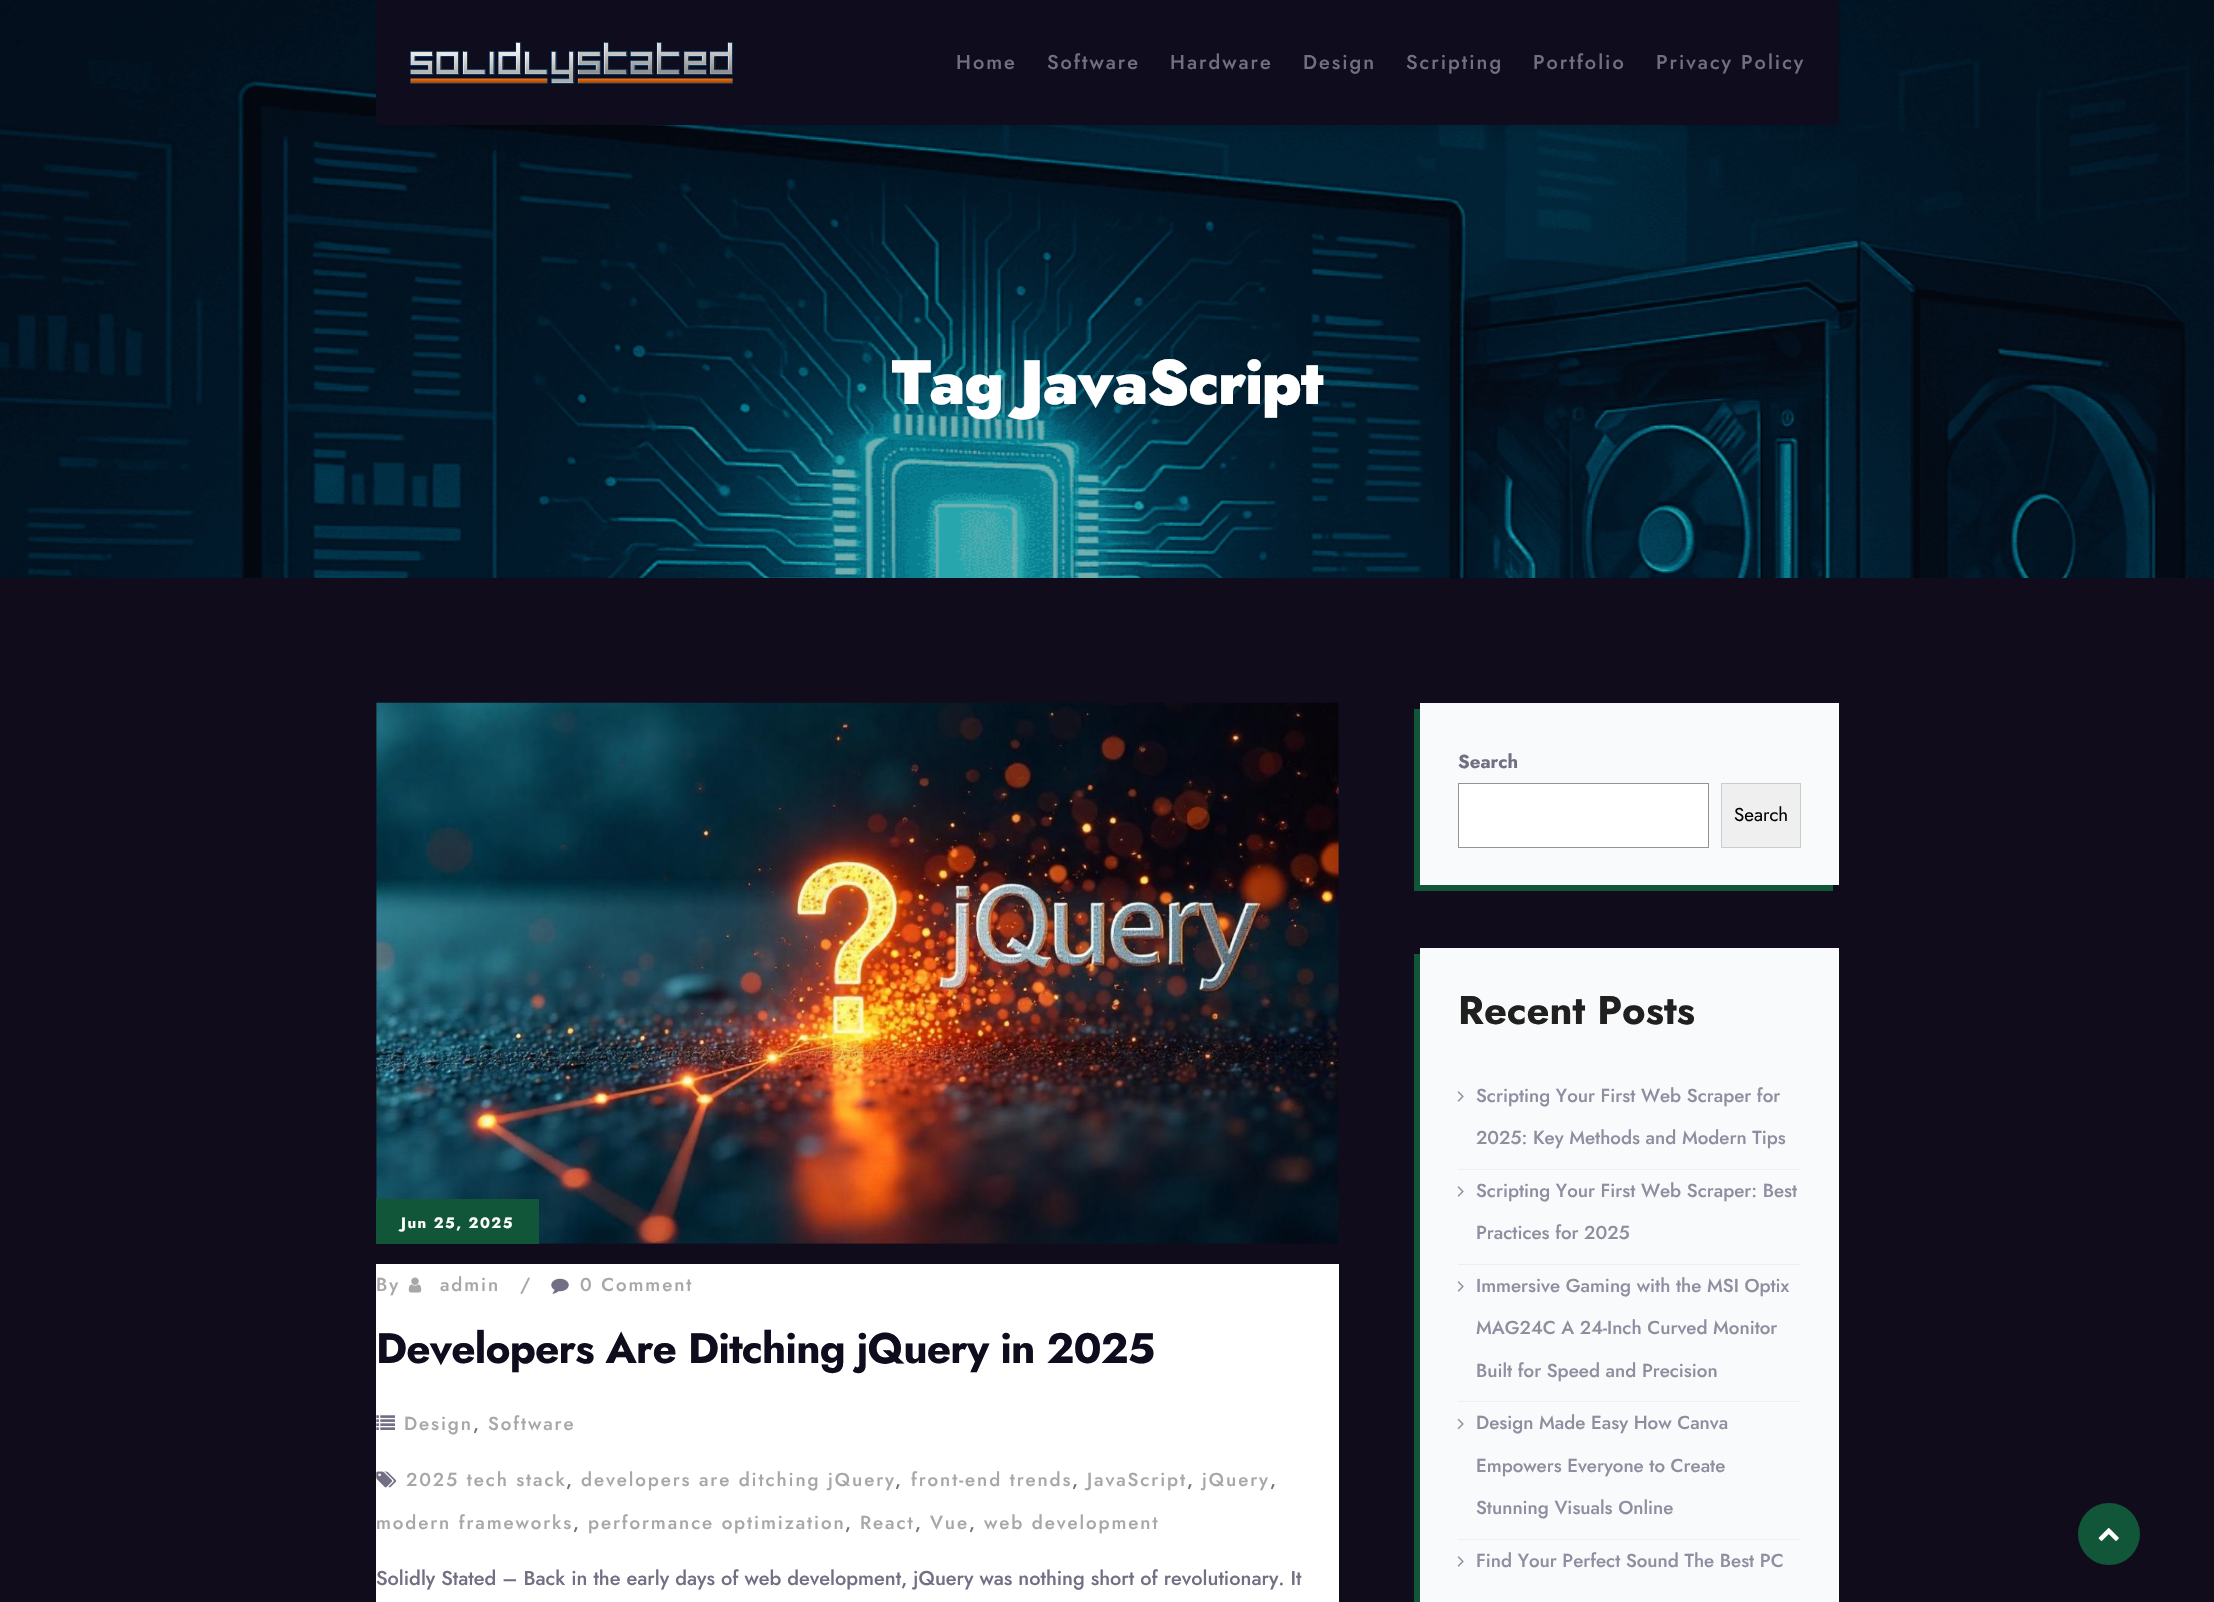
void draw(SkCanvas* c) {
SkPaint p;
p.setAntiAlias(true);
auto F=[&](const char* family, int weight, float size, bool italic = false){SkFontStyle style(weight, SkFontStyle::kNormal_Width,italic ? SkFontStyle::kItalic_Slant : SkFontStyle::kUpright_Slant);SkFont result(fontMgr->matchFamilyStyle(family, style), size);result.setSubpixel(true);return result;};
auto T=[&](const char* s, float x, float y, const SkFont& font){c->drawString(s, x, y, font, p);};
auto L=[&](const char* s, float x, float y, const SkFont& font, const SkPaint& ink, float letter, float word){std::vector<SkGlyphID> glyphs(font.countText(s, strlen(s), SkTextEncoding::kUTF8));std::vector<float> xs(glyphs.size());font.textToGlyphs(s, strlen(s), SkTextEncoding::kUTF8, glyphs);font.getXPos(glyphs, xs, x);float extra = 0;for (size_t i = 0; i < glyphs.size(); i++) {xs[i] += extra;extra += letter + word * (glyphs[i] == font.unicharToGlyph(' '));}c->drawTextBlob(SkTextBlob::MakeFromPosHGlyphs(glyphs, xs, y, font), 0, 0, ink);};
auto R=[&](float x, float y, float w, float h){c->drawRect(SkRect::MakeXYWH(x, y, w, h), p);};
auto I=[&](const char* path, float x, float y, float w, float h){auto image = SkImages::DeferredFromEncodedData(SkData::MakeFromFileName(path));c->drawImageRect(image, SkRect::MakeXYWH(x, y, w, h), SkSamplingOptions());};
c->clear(0xff100c1c);
I("2.png",0,0,2214,578);
p.setColor(0x1a000000);
p.setMaskFilter(SkMaskFilter::MakeBlur(kNormal_SkBlurStyle, 4));
c->drawRect(SkRect::MakeXYWH(378,6,1460,123),p);
p.setMaskFilter(nullptr);
p.setColor(0xff0f0d1d);
R(376,0,1463,125);
I("1.png",410,42,323,42);
auto f1 = F("Jost",500,20);
p.setColor(0xff726f84);
L("Home",956,69,f1,p,2,0);
L("Software",1047,69,f1,p,2,0);
L("Hardware",1170,69,f1,p,2,0);
L("Design",1303,69,f1,p,2,0);
L("Scripting",1406,69,f1,p,2,0);
L("Portfolio",1533,69,f1,p,2,0);
L("Privacy Policy",1656,69,f1,p,2,0);
auto f2 = F("Jost",900,62.5);
p.setColor(0xffffffff);
L("Tag JavaScript",892,404,f2,p,-1.25,0);
I("3.png",376,702,963,542);
p.setColor(0xff125639);
R(376,1199,163,45);
auto f3 = F("Jost",700,15);
p.setColor(0xffffffff);
L("Jun 25, 2025",401,1228,f3,p,1.5,0);
R(376,1264,963,338);
auto f4 = F("Jost",500,18.75);
p.setColor(0xffa7a7a7);
L("By",376,1291,f4,p,1.9,0);
I("4.png",408,1277,14,16);
L("admin",440,1291,f4,p,1.9,0);
L("/",520,1291,f4,p,1.9,0);
I("5.png",551,1278,18,16);
L("0 Comment",580,1291,f4,p,1.9,0);
auto f5 = F("Jost",700,42.5);
p.setColor(0xff0f0d1d);
L("Developers Are Ditching jQuery in 2025",376,1363,f5,p,-.85,0);
I("6.png",376,1415,19,15);
p.setColor(0xffa7a7a7);
L("Design",404,1430,f4,p,1.9,0);
p.setColor(0xff726f84);
L(",",473,1430,f4,p,1.9,0);
p.setColor(0xffa7a7a7);
L("Software",488,1430,f4,p,1.9,0);
I("7.png",376,1471,21,17);
L("2025 tech stack",406,1486,f4,p,1.9,0);
p.setColor(0xff726f84);
L(",",566,1486,f4,p,1.9,0);
p.setColor(0xffa7a7a7);
L("developers are ditching jQuery",581,1486,f4,p,1.9,0);
p.setColor(0xff726f84);
L(",",895,1486,f4,p,1.9,0);
p.setColor(0xffa7a7a7);
L("front-end trends",911,1486,f4,p,1.9,0);
p.setColor(0xff726f84);
L(",",1072,1486,f4,p,1.9,0);
p.setColor(0xffa7a7a7);
L("JavaScript",1087,1486,f4,p,1.9,0);
p.setColor(0xff726f84);
L(",",1187,1486,f4,p,1.9,0);
p.setColor(0xffa7a7a7);
L("jQuery",1202,1486,f4,p,1.9,0);
p.setColor(0xff726f84);
L(",",1270,1486,f4,p,1.9,0);
p.setColor(0xffa7a7a7);
L("modern frameworks",376,1529,f4,p,1.9,0);
p.setColor(0xff726f84);
L(",",573,1529,f4,p,1.9,0);
p.setColor(0xffa7a7a7);
L("performance optimization",588,1529,f4,p,1.9,0);
p.setColor(0xff726f84);
L(",",845,1529,f4,p,1.9,0);
p.setColor(0xffa7a7a7);
L("React",860,1529,f4,p,1.9,0);
p.setColor(0xff726f84);
L(",",915,1529,f4,p,1.9,0);
p.setColor(0xffa7a7a7);
L("Vue",930,1529,f4,p,1.9,0);
p.setColor(0xff726f84);
L(",",969,1529,f4,p,1.9,0);
p.setColor(0xffa7a7a7);
L("web development",984,1529,f4,p,1.9,0);
p.setColor(0xff726f84);
T("Solidly Stated – Back in the early days of web development, jQuery was nothing short of revolutionary. It",376,1585,f1);
p.setColor(0xff125639);
R(1414,709,6,182);
p.setColor(0xfff9fafb);
R(1420,703,419,182);
auto f6 = F("Jost",700,18.75);
p.setColor(0xff726f84);
T("Search",1458,768,f6);
p.setColor(0xffffffff);
c->drawRect(SkRect::MakeXYWH(1458.5,783.5,250,64),p);
p.setStroke(true);
p.setStrokeWidth(1);
p.setColor(0xff949494);
c->drawRect(SkRect::MakeXYWH(1458.5,783.5,250,64),p);
p.setStroke(false);
p.setColor(0xffefefef);
c->drawRect(SkRect::MakeXYWH(1721.5,783.5,79,64),p);
p.setStroke(true);
p.setColor(0xffcccccc);
c->drawRect(SkRect::MakeXYWH(1721.5,783.5,79,64),p);
auto f7 = F("Jost",400,18.75);
p.setStroke(false);
p.setColor(0xff000000);
T("Search",1734,821,f7);
p.setColor(0xff125639);
R(1414,885,419,6);
R(1414,954,6,648);
p.setColor(0xfff9fafb);
R(1420,948,419,654);
auto f8 = F("Jost",700,40);
p.setColor(0xff202020);
T("Recent Posts",1458,1024,f8);
p.setColor(0xffeeeeee);
R(1458,1169,343,1);
I("8.png",1457,1091,7,11);
p.setColor(0xff8f8da0);
T("Scripting Your First Web Scraper for",1476,1102,f4);
T("2025: Key Methods and Modern Tips",1476,1144,f4);
p.setColor(0xffeeeeee);
R(1458,1264,343,1);
I("8.png",1457,1186,7,11);
p.setColor(0xff8f8da0);
T("Scripting Your First Web Scraper: Best",1476,1197,f4);
T("Practices for 2025",1476,1239,f4);
p.setColor(0xffeeeeee);
R(1458,1401,343,1);
I("8.png",1457,1281,7,11);
p.setColor(0xff8f8da0);
T("Immersive Gaming with the MSI Optix",1476,1292,f4);
T("MAG24C A 24-Inch Curved Monitor",1476,1334,f4);
T("Built for Speed and Precision",1476,1377,f4);
p.setColor(0xffeeeeee);
R(1458,1539,343,1);
I("9.png",1457,1418,7,12);
p.setColor(0xff8f8da0);
T("Design Made Easy How Canva",1476,1429,f4);
T("Empowers Everyone to Create",1476,1472,f4);
T("Stunning Visuals Online",1476,1514,f4);
I("8.png",1457,1556,7,11);
T("Find Your Perfect Sound The Best PC",1476,1567,f4);
p.setColor(0xff125639);
c->drawCircle(2109,1534,31,p);
I("10.png",2098,1528,21,13);
}
